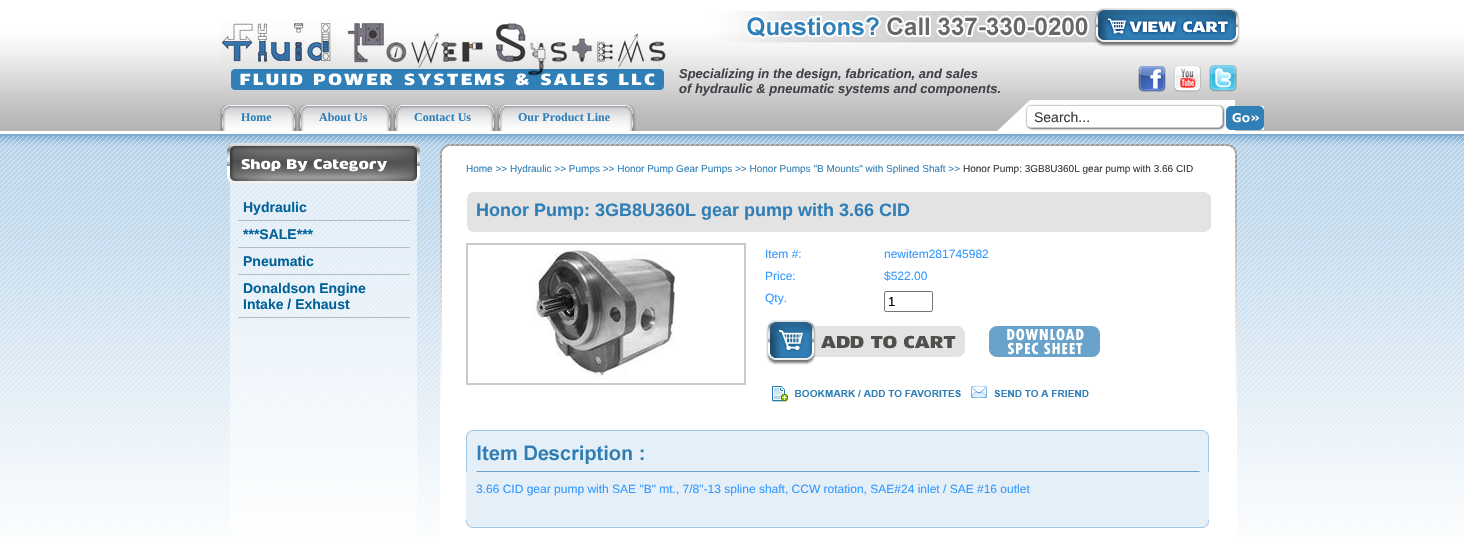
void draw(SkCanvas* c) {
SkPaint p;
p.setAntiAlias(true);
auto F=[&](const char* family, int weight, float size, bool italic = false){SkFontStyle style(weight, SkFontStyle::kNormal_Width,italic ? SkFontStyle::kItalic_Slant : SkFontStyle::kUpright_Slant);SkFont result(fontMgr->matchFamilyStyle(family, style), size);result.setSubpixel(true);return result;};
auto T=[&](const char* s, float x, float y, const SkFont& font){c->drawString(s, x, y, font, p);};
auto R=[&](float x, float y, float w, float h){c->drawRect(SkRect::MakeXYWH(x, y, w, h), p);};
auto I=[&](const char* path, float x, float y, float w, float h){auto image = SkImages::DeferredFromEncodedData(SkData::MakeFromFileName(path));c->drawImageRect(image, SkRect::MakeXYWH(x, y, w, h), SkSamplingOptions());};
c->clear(0xffffffff);
I("1.png",0,0,1464,537);
p.setColor(0xffffffff);
R(220,34,1024,97);
I("2.png",220,8,1024,123);
auto f1 = F("Liberation Sans",700,13,true);
p.setColor(0xff434049);
T("Specializing in the design, fabrication, and sales",679,78,f1);
T("of hydraulic & pneumatic systems and components.",679,93,f1);
I("3.png",220,105,11,26);
I("4.png",231,105,67,26);
auto f2 = F("Liberation Serif",700,12);
p.setColor(0xff317fb7);
T("Home",241,121,f2);
I("3.png",298,105,11,26);
I("5.png",309,105,84,26);
T("About Us",319,121,f2);
I("3.png",393,105,11,26);
I("6.png",404,105,93,26);
T("Contact Us",414,121,f2);
I("3.png",497,105,11,26);
I("7.png",508,105,128,26);
T("Our Product Line",518,121,f2);
p.setColor(0xff666666);
p.setMaskFilter(SkMaskFilter::MakeBlur(kNormal_SkBlurStyle, 1));
c->drawRoundRect(SkRect::MakeXYWH(1027,106,197,23),5,5,p);
p.setMaskFilter(nullptr);
p.setColor(0xffffffff);
c->drawRoundRect(SkRect::MakeXYWH(1026.5,105.5,196,22),4.5,4.5,p);
p.setStroke(true);
p.setStrokeWidth(1);
p.setColor(0xffcccccc);
c->drawRoundRect(SkRect::MakeXYWH(1026.5,105.5,196,22),4.5,4.5,p);
auto f3 = F("Liberation Sans",400,14);
p.setStroke(false);
p.setColor(0xff3a3a3a);
T("Search...",1034,122,f3);
I("8.png",1226,106,38,24);
I("9.png",220,134,1024,403);
p.setColor(0xffaebeca);
R(238,220,172,1);
auto f4 = F("Liberation Sans",700,14);
p.setColor(0xff006298);
T("Hydraulic",243,212,f4);
p.setColor(0xffaebeca);
R(238,247,172,1);
p.setColor(0xff006298);
T("***SALE***",243,239,f4);
p.setColor(0xffaebeca);
R(238,274,172,1);
p.setColor(0xff006298);
T("Pneumatic",243,266,f4);
p.setColor(0xffaebeca);
R(238,317,172,1);
p.setColor(0xff006298);
T("Donaldson Engine",243,293,f4);
T("Intake / Exhaust",243,309,f4);
auto f5 = F("Liberation Sans",400,10);
p.setColor(0xff317fb7);
T("Home >> Hydraulic >> Pumps >> Honor Pump Gear Pumps >> Honor Pumps \"B Mounts\" with Splined Shaft >>",466,172,f5);
p.setColor(0xff3a3a3a);
T("Honor Pump: 3GB8U360L gear pump with 3.66 CID",963,172,f5);
auto f6 = F("Liberation Sans",700,18);
p.setColor(0xff317fb7);
T("Honor Pump: 3GB8U360L gear pump with 3.66 CID",476,216,f6);
p.setStroke(true);
p.setStrokeWidth(2);
p.setColor(0xffcbcbcb);
c->drawRect(SkRect::MakeXYWH(467,244,278,140),p);
I("10.png",531,245,144,135);
auto f7 = F("Liberation Sans",400,12);
p.setStroke(false);
p.setColor(0xff3399ff);
T("Item #:",765,258,f7);
T("newitem281745982",884,258,f7);
T("Price:",765,280,f7);
T("$522.00",884,280,f7);
T("Qty.",765,302,f7);
p.setStroke(true);
p.setStrokeWidth(1);
p.setColor(0xff767676);
c->drawRoundRect(SkRect::MakeXYWH(884.5,291.5,48,20),1.5,1.5,p);
auto f8 = F("Liberation Sans",400,13);
p.setStroke(false);
p.setColor(0xff000000);
T("1",888,306,f8);
I("11.png",766,320,199,45);
I("12.png",989,326,111,31);
I("13.png",772,386,189,16);
I("14.png",971,386,118,12);
I("15.png",466,430,743,42);
p.setColor(0xffe5eff7);
R(466,472,743,48);
p.setColor(0xff3399ff);
T("3.66 CID gear pump with SAE \"B\" mt., 7/8\"-13 spline shaft, CCW rotation, SAE#24 inlet / SAE #16 outlet",476,493,f7);
I("16.png",466,520,743,8);
}
